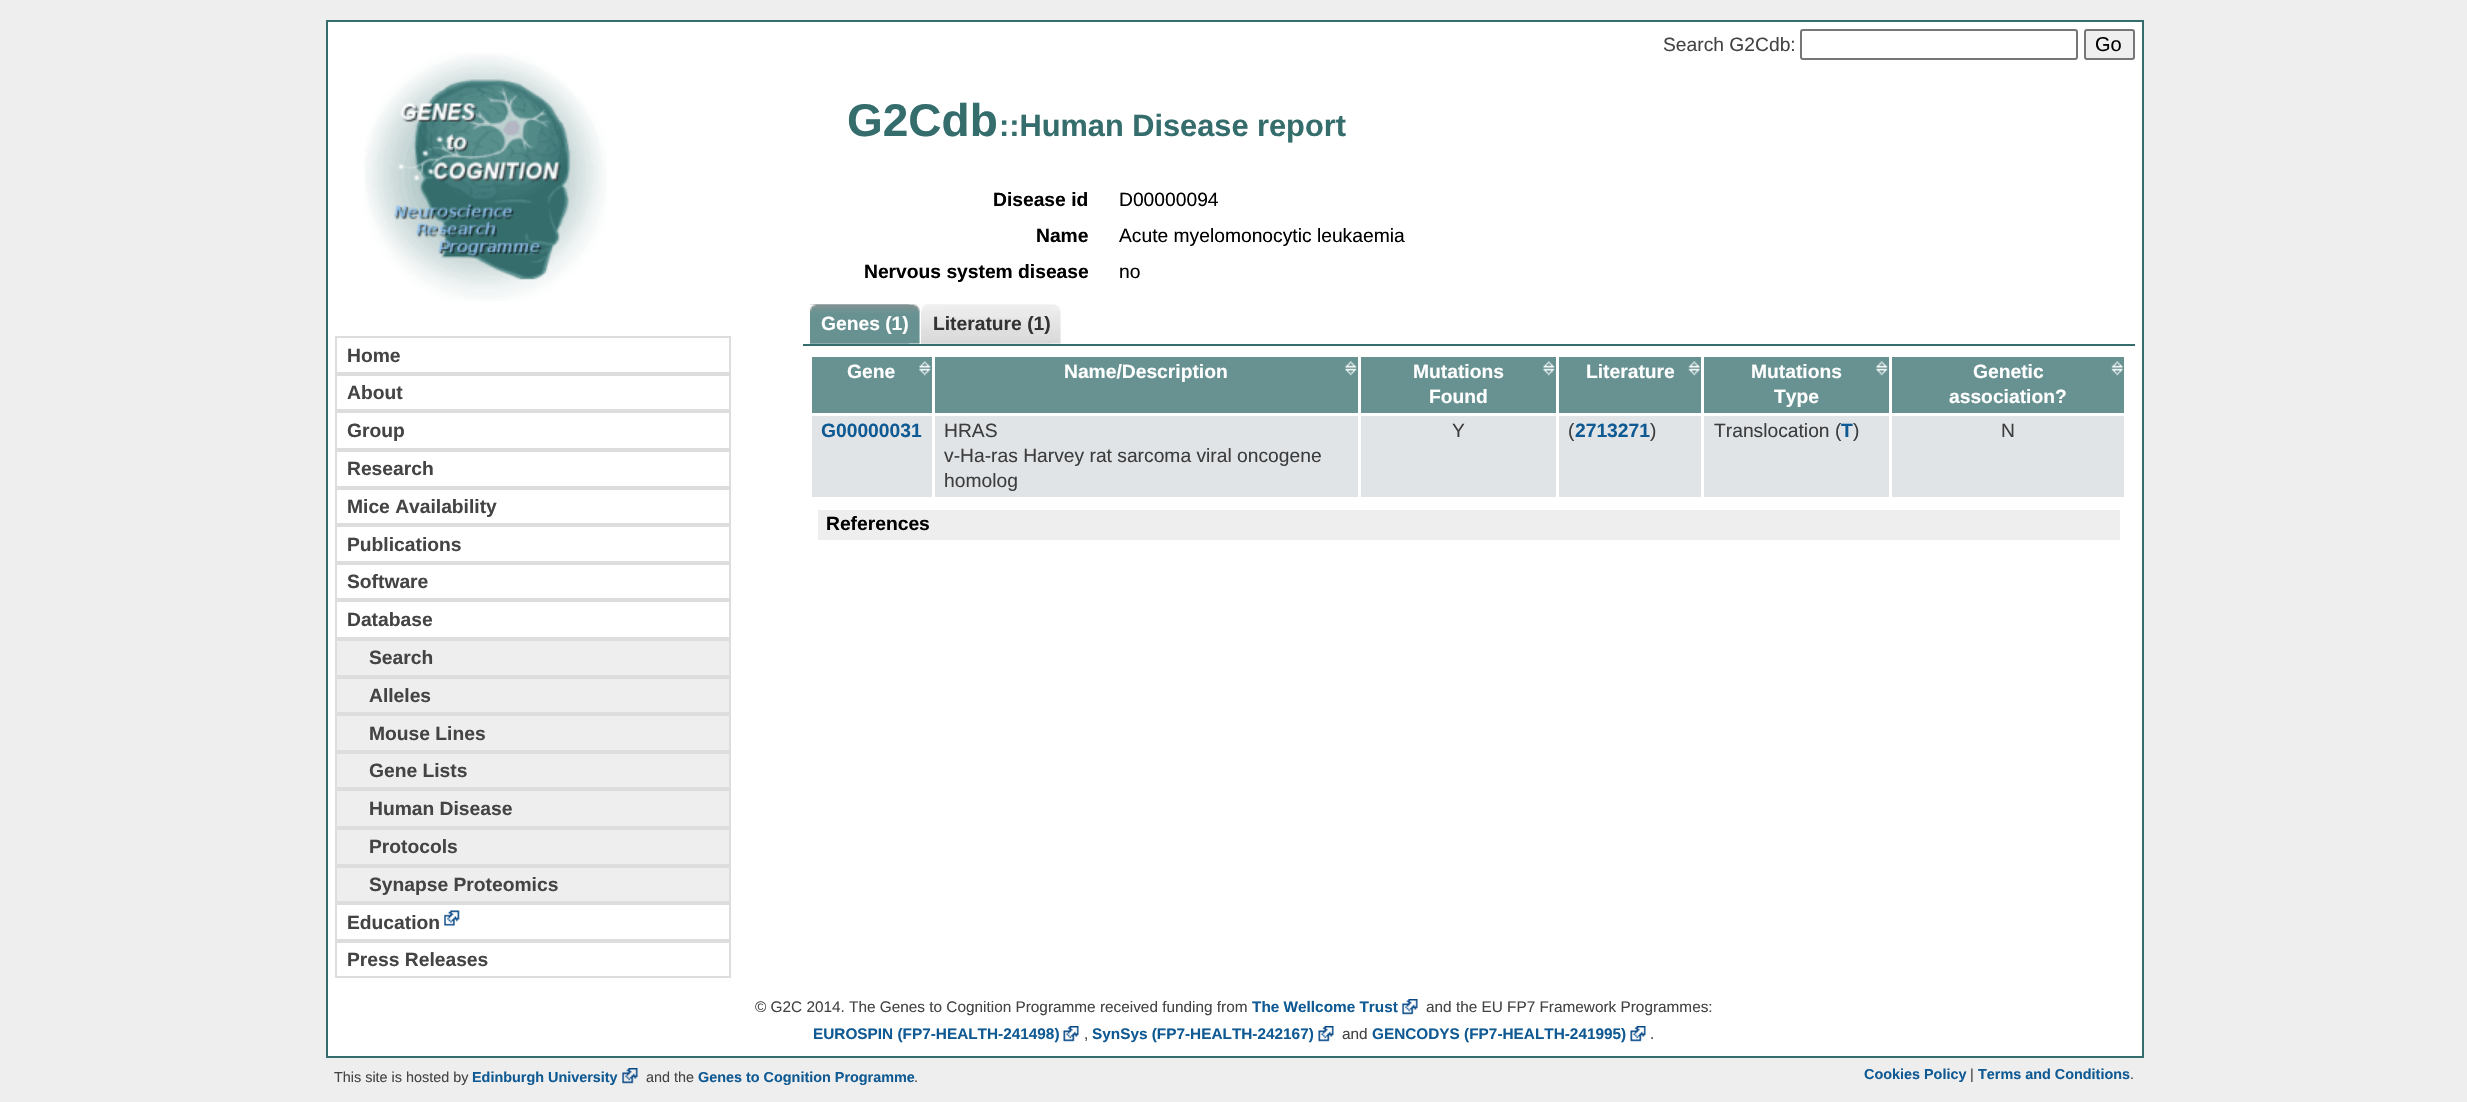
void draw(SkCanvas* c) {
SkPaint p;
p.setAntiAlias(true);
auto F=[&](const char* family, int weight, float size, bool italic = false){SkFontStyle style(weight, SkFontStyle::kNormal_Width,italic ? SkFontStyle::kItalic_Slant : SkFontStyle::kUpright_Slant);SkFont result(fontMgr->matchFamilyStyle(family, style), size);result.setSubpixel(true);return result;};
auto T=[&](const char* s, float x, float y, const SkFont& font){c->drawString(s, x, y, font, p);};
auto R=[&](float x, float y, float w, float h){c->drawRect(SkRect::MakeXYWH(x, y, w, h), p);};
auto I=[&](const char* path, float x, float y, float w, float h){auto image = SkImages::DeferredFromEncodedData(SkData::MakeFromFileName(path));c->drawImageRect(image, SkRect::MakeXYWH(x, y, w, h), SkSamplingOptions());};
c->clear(0xffeeeeee);
p.setColor(0xffffffff);
c->drawRect(SkRect::MakeXYWH(327,21,1816,1036),p);
p.setStroke(true);
p.setStrokeWidth(2);
p.setColor(0xff356d6d);
c->drawRect(SkRect::MakeXYWH(327,21,1816,1036),p);
auto f1 = F("Liberation Sans",400,19.25);
p.setStroke(false);
p.setColor(0xff444444);
T("Search G2Cdb:",1663,51,f1);
p.setStroke(true);
p.setColor(0xff767676);
c->drawRoundRect(SkRect::MakeXYWH(1801,30,276,29),2,2,p);
p.setStroke(false);
p.setColor(0xffefefef);
c->drawRoundRect(SkRect::MakeXYWH(2085,30,49,29),2,2,p);
p.setStroke(true);
p.setColor(0xff767676);
c->drawRoundRect(SkRect::MakeXYWH(2085,30,49,29),2,2,p);
auto f2 = F("Liberation Sans",400,20);
p.setStroke(false);
p.setColor(0xff000000);
T("Go",2095,51,f2);
I("1.png",364,53,243,248);
p.setStroke(true);
p.setColor(0xffdddddd);
c->drawRect(SkRect::MakeXYWH(336,337,394,36),p);
auto f3 = F("Liberation Sans",700,19.25);
p.setStroke(false);
p.setColor(0xff444444);
T("Home",347,362,f3);
p.setStroke(true);
p.setColor(0xffdddddd);
c->drawRect(SkRect::MakeXYWH(336,375,394,35),p);
p.setStroke(false);
p.setColor(0xff444444);
T("About",347,399,f3);
p.setStroke(true);
p.setColor(0xffdddddd);
c->drawRect(SkRect::MakeXYWH(336,412,394,37),p);
p.setStroke(false);
p.setColor(0xff444444);
T("Group",347,437,f3);
p.setStroke(true);
p.setColor(0xffdddddd);
c->drawRect(SkRect::MakeXYWH(336,451,394,36),p);
p.setStroke(false);
p.setColor(0xff444444);
T("Research",347,475,f3);
p.setStroke(true);
p.setColor(0xffdddddd);
c->drawRect(SkRect::MakeXYWH(336,489,394,35),p);
p.setStroke(false);
p.setColor(0xff444444);
T("Mice Availability",347,513,f3);
p.setStroke(true);
p.setColor(0xffdddddd);
c->drawRect(SkRect::MakeXYWH(336,526,394,36),p);
p.setStroke(false);
p.setColor(0xff444444);
T("Publications",347,551,f3);
p.setStroke(true);
p.setColor(0xffdddddd);
c->drawRect(SkRect::MakeXYWH(336,564,394,35),p);
p.setStroke(false);
p.setColor(0xff444444);
T("Software",347,588,f3);
p.setStroke(true);
p.setColor(0xffdddddd);
c->drawRect(SkRect::MakeXYWH(336,601,394,37),p);
p.setStroke(false);
p.setColor(0xff444444);
T("Database",347,626,f3);
p.setColor(0xffeeeeee);
c->drawRect(SkRect::MakeXYWH(336,640,394,36),p);
p.setStroke(true);
p.setColor(0xffdddddd);
c->drawRect(SkRect::MakeXYWH(336,640,394,36),p);
p.setStroke(false);
p.setColor(0xff444444);
T("Search",369,664,f3);
p.setColor(0xffeeeeee);
c->drawRect(SkRect::MakeXYWH(336,678,394,35),p);
p.setStroke(true);
p.setColor(0xffdddddd);
c->drawRect(SkRect::MakeXYWH(336,678,394,35),p);
p.setStroke(false);
p.setColor(0xff444444);
T("Alleles",369,702,f3);
p.setColor(0xffeeeeee);
c->drawRect(SkRect::MakeXYWH(336,715,394,36),p);
p.setStroke(true);
p.setColor(0xffdddddd);
c->drawRect(SkRect::MakeXYWH(336,715,394,36),p);
p.setStroke(false);
p.setColor(0xff444444);
T("Mouse Lines",369,740,f3);
p.setColor(0xffeeeeee);
c->drawRect(SkRect::MakeXYWH(336,753,394,35),p);
p.setStroke(true);
p.setColor(0xffdddddd);
c->drawRect(SkRect::MakeXYWH(336,753,394,35),p);
p.setStroke(false);
p.setColor(0xff444444);
T("Gene Lists",369,777,f3);
p.setColor(0xffeeeeee);
c->drawRect(SkRect::MakeXYWH(336,790,394,37),p);
p.setStroke(true);
p.setColor(0xffdddddd);
c->drawRect(SkRect::MakeXYWH(336,790,394,37),p);
p.setStroke(false);
p.setColor(0xff444444);
T("Human Disease",369,815,f3);
p.setColor(0xffeeeeee);
c->drawRect(SkRect::MakeXYWH(336,829,394,36),p);
p.setStroke(true);
p.setColor(0xffdddddd);
c->drawRect(SkRect::MakeXYWH(336,829,394,36),p);
p.setStroke(false);
p.setColor(0xff444444);
T("Protocols",369,853,f3);
p.setColor(0xffeeeeee);
c->drawRect(SkRect::MakeXYWH(336,867,394,35),p);
p.setStroke(true);
p.setColor(0xffdddddd);
c->drawRect(SkRect::MakeXYWH(336,867,394,35),p);
p.setStroke(false);
p.setColor(0xff444444);
T("Synapse Proteomics",369,891,f3);
p.setStroke(true);
p.setColor(0xffdddddd);
c->drawRect(SkRect::MakeXYWH(336,904,394,36),p);
p.setStroke(false);
p.setColor(0xff444444);
T("Education",347,929,f3);
I("2.png",444,910,16,16);
p.setStroke(true);
p.setColor(0xffdddddd);
c->drawRect(SkRect::MakeXYWH(336,942,394,35),p);
p.setStroke(false);
p.setColor(0xff444444);
T("Press Releases",347,966,f3);
auto f4 = F("Liberation Sans",700,46);
p.setColor(0xff356d6d);
T("G2Cdb",847,136,f4);
auto f5 = F("Liberation Sans",700,30.75);
T("::Human Disease report",999,136,f5);
p.setColor(0xff000000);
T("Disease id",993,206,f3);
T("D00000094",1119,206,f1);
T("Name",1036,242,f3);
T("Acute myelomonocytic leukaemia",1119,242,f1);
T("Nervous system disease",864,278,f3);
T("no",1119,278,f1);
I("3.png",810,304,110,40);
I("4.png",810,304,99,40);
p.setColor(0xffffffff);
T("Genes (1)",821,330,f3);
I("5.png",921,304,140,40);
I("6.png",921,304,129,40);
p.setColor(0xff333333);
T("Literature (1)",933,330,f3);
p.setColor(0xff356d6d);
R(803,344,1332,2);
p.setColor(0xff689292);
R(812,357,120,56);
I("7.png",919,361,12,15);
p.setColor(0xffffffff);
T("Gene",847,378,f3);
p.setColor(0xff689292);
R(935,357,423,56);
I("7.png",1345,361,12,15);
p.setColor(0xffffffff);
T("Name/Description",1064,378,f3);
p.setColor(0xff689292);
R(1361,357,195,56);
I("8.png",1543,361,12,15);
p.setColor(0xffffffff);
T("Mutations",1413,378,f3);
T("Found",1429,403,f3);
p.setColor(0xff689292);
R(1559,357,142,56);
I("9.png",1688,361,12,15);
p.setColor(0xffffffff);
T("Literature",1586,378,f3);
p.setColor(0xff689292);
R(1704,357,185,56);
I("7.png",1876,361,12,15);
p.setColor(0xffffffff);
T("Mutations",1751,378,f3);
T("Type",1774,403,f3);
p.setColor(0xff689292);
R(1892,357,232,56);
I("9.png",2111,361,12,15);
p.setColor(0xffffffff);
T("Genetic",1973,378,f3);
T("association?",1949,403,f3);
p.setColor(0xffe0e4e7);
R(812,416,120,81);
p.setColor(0xff105a94);
T("G00000031",821,437,f3);
p.setColor(0xffe0e4e7);
R(935,416,423,81);
p.setColor(0xff3d3d3d);
T("HRAS",944,437,f1);
T("v-Ha-ras Harvey rat sarcoma viral oncogene",944,462,f1);
T("homolog",944,487,f1);
p.setColor(0xffe0e4e7);
R(1361,416,195,81);
p.setColor(0xff3d3d3d);
T("Y",1452,437,f1);
p.setColor(0xffe0e4e7);
R(1559,416,142,81);
p.setColor(0xff3d3d3d);
T("(",1568,437,f1);
p.setColor(0xff105a94);
T("2713271",1575,437,f3);
p.setColor(0xff3d3d3d);
T(")",1650,437,f1);
p.setColor(0xffe0e4e7);
R(1704,416,185,81);
p.setColor(0xff3d3d3d);
T("Translocation (",1714,437,f1);
p.setColor(0xff105a94);
T("T",1841,437,f3);
p.setColor(0xff3d3d3d);
T(")",1853,437,f1);
p.setColor(0xffe0e4e7);
R(1892,416,232,81);
p.setColor(0xff3d3d3d);
T("N",2001,437,f1);
p.setColor(0xffeeeeee);
R(818,510,1302,30);
p.setColor(0xff000000);
T("References",826,530,f3);
auto f6 = F("Liberation Sans",400,15.35);
p.setColor(0xff444444);
T("© G2C 2014. The Genes to Cognition Programme received funding from",755,1012,f6);
auto f7 = F("Liberation Sans",700,15.35);
p.setColor(0xff105a94);
T("The Wellcome Trust",1252,1012,f7);
I("10.png",1402,999,16,16);
p.setColor(0xff444444);
T("and the EU FP7 Framework Programmes:",1426,1012,f6);
p.setColor(0xff105a94);
T("EUROSPIN (FP7-HEALTH-241498)",813,1039,f7);
I("11.png",1063,1026,16,16);
p.setColor(0xff444444);
T(",",1084,1039,f6);
p.setColor(0xff105a94);
T("SynSys (FP7-HEALTH-242167)",1092,1039,f7);
I("11.png",1318,1026,16,16);
p.setColor(0xff444444);
T("and",1342,1039,f6);
p.setColor(0xff105a94);
T("GENCODYS (FP7-HEALTH-241995)",1372,1039,f7);
I("11.png",1630,1026,16,16);
p.setColor(0xff444444);
T(".",1650,1039,f6);
auto f8 = F("Liberation Sans",400,14.4);
T("This site is hosted by",334,1082,f8);
auto f9 = F("Liberation Sans",700,14.4);
p.setColor(0xff105a94);
T("Edinburgh University",472,1082,f9);
I("12.png",622,1068,16,16);
p.setColor(0xff444444);
T("and the",646,1082,f8);
p.setColor(0xff105a94);
T("Genes to Cognition Programme",698,1082,f9);
p.setColor(0xff444444);
T(".",914,1082,f8);
p.setColor(0xff105a94);
T("Cookies Policy",1864,1079,f9);
p.setColor(0xff444444);
T("|",1970,1079,f8);
p.setColor(0xff105a94);
T("Terms and Conditions",1978,1079,f9);
p.setColor(0xff444444);
T(".",2130,1079,f8);
}
